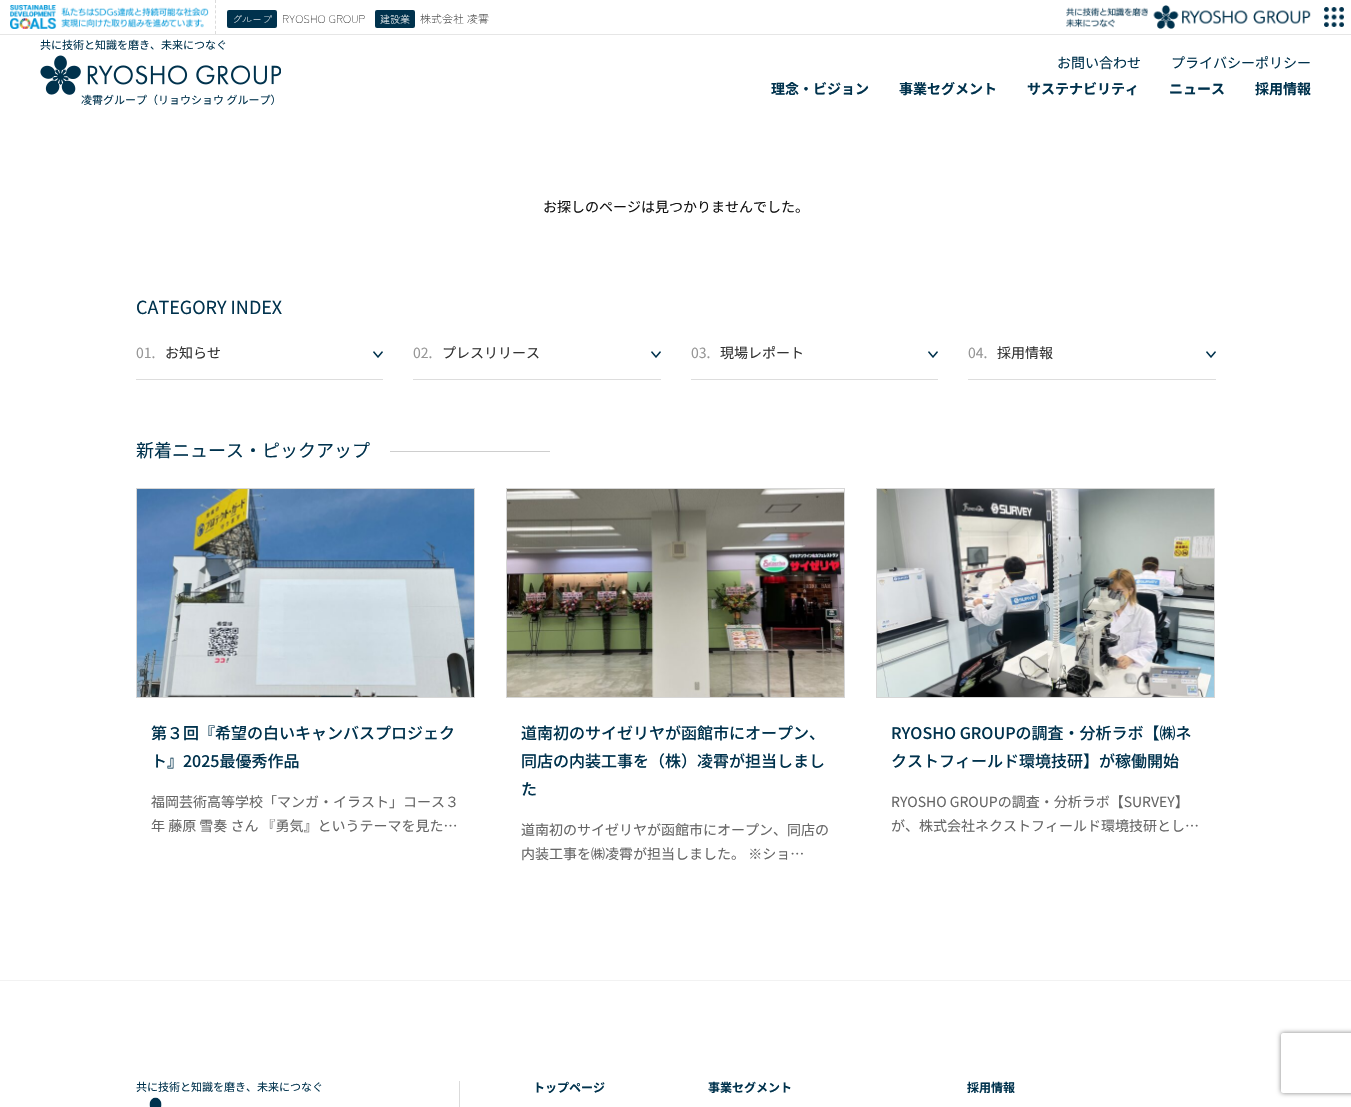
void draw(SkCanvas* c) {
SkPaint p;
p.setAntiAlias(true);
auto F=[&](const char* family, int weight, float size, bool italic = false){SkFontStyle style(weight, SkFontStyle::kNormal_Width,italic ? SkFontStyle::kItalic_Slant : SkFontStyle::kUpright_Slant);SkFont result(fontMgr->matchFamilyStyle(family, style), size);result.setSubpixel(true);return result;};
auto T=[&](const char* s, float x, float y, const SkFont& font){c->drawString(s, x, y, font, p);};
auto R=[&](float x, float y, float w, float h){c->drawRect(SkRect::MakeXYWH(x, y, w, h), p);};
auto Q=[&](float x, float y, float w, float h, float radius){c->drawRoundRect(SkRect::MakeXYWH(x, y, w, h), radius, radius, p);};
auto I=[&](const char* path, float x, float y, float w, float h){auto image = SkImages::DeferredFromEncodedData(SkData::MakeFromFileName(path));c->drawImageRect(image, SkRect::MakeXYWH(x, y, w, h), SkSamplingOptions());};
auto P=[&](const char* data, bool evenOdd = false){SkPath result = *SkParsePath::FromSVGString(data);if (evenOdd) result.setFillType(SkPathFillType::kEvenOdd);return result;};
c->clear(0xffffffff);
p.setColor(0xffe6e6e6);
R(0,34,1351,1);
I("1.png",10,5,199,24);
p.setStroke(true);
p.setStrokeWidth(1);
p.setColor(0xffdbdbdb);
p.setPathEffect(SkDashPathEffect::Make({{3,2.17f}}, 0));
c->drawPath(P("M215.5 0v34"),p);
p.setPathEffect(nullptr);
p.setStroke(false);
p.setColor(0xff00324d);
Q(227,10,50,18,2);
auto f1 = F("Zen Maru Gothic",300,10);
p.setColor(0xffffffff);
T("グループ",232,23,f1);
auto f2 = F("Zen Maru Gothic",300,11);
p.setColor(0xff333333);
T("RYOSHO GROUP",282,23,f2);
p.setColor(0xff00324d);
Q(375,10,40,18,2);
p.setColor(0xffffffff);
T("建設業",380,23,f1);
p.setColor(0xff333333);
T("株式会社 凌霄",420,23,f2);
I("2.png",1066,5,245,24);
I("3.png",1324,7,20,20);
auto f3 = F("Noto Sans JP",400,11);
p.setColor(0xff00324d);
T("共に技術と知識を磨き、未来につなぐ",40,49,f3);
T("凌霄グループ（リョウショウ グループ）",81,104,f3);
I("4.png",40,55,241,40);
auto f4 = F("Noto Sans JP",400,14);
T("お問い合わせ",1057,68,f4);
T("プライバシーポリシー",1171,68,f4);
auto f5 = F("Noto Sans JP",700,14);
T("理念・ビジョン",771,94,f5);
T("事業セグメント",899,94,f5);
T("サステナビリティ",1027,94,f5);
T("ニュース",1169,94,f5);
T("採用情報",1255,94,f5);
p.setColor(0xff121212);
T("お探しのページは見つかりませんでした。",543,212,f4);
auto f6 = F("Noto Sans JP",400,18);
p.setColor(0xff00324d);
T("CATEGORY INDEX",136,314,f6);
p.setColor(0xffdddddd);
R(136,379,247,1);
p.setColor(0xff969696);
T("01.",136,358,f4);
p.setColor(0xff333333);
T("お知らせ",165,358,f4);
I("5.png",373,351,10,7);
p.setColor(0xffdddddd);
R(413,379,248,1);
p.setColor(0xff969696);
T("02.",413,358,f4);
p.setColor(0xff333333);
T("プレスリリース",442,358,f4);
I("5.png",651,351,10,7);
p.setColor(0xffdddddd);
R(691,379,247,1);
p.setColor(0xff969696);
T("03.",691,358,f4);
p.setColor(0xff333333);
T("現場レポート",720,358,f4);
I("5.png",928,351,10,7);
p.setColor(0xffdddddd);
R(968,379,248,1);
p.setColor(0xff969696);
T("04.",968,358,f4);
p.setColor(0xff333333);
T("採用情報",997,358,f4);
I("5.png",1206,351,10,7);
p.setColor(0xff00324d);
T("新着ニュース・ピックアップ",136,457,f6);
p.setColor(0xffcecece);
R(390,451,160,1);
p.setStroke(true);
p.setColor(0xffd6d6d6);
c->drawRect(SkRect::MakeXYWH(136.5,488.5,338,209),p);
I("6.png",137,489,337,208);
auto f7 = F("Noto Sans JP",500,16);
p.setStroke(false);
p.setColor(0xff00324d);
T("第３回『希望の白いキャンバスプロジェク",151,739,f7);
T("ト』2025最優秀作品",151,767,f7);
p.setColor(0xff666666);
T("福岡芸術高等学校「マンガ・イラスト」コース３",151,807,f4);
T("年 藤原 雪奏 さん 『勇気』というテーマを見た…",151,831,f4);
p.setStroke(true);
p.setColor(0xffd6d6d6);
c->drawRect(SkRect::MakeXYWH(506.5,488.5,338,209),p);
I("7.png",507,489,337,208);
p.setStroke(false);
p.setColor(0xff00324d);
T("道南初のサイゼリヤが函館市にオープン、",521,739,f7);
T("同店の内装工事を（株）凌霄が担当しまし",521,767,f7);
T("た",521,795,f7);
p.setColor(0xff666666);
T("道南初のサイゼリヤが函館市にオープン、同店の",521,835,f4);
T("内装工事を㈱凌霄が担当しました。 ※ショ…",521,859,f4);
p.setStroke(true);
p.setColor(0xffd6d6d6);
c->drawRect(SkRect::MakeXYWH(876.5,488.5,338,209),p);
I("8.png",877,489,337,208);
p.setStroke(false);
p.setColor(0xff00324d);
T("RYOSHO GROUPの調査・分析ラボ【㈱ネ",891,739,f7);
T("クストフィールド環境技研】が稼働開始",891,767,f7);
p.setColor(0xff666666);
T("RYOSHO GROUPの調査・分析ラボ【SURVEY】",891,807,f4);
T("が、株式会社ネクストフィールド環境技研とし…",891,831,f4);
p.setColor(0xfff2f2f2);
R(0,980,1351,1);
p.setColor(0xff00324d);
T("共に技術と知識を磨き、未来につなぐ",136,1091,f3);
I("9.png",149,1097,13,10);
p.setColor(0xffdbdbdb);
R(459,1081,1,26);
auto f8 = F("Noto Sans JP",700,12);
p.setColor(0xff00324d);
T("トップページ",533,1092,f8);
T("事業セグメント",708,1092,f8);
T("採用情報",967,1092,f8);
c->save();
c->clipPath(P("M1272 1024h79v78h-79zm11 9h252c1 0 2 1 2 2v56c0 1-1 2-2 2h-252c-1 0-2-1-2-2v-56c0-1 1-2 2-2z",true),true);
p.setColor(0xff808080);
p.setMaskFilter(SkMaskFilter::MakeBlur(kNormal_SkBlurStyle, 2.5));
c->drawRoundRect(SkRect::MakeXYWH(1281,1033,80,60),2,2,p);
p.setMaskFilter(nullptr);
c->restore();
}
